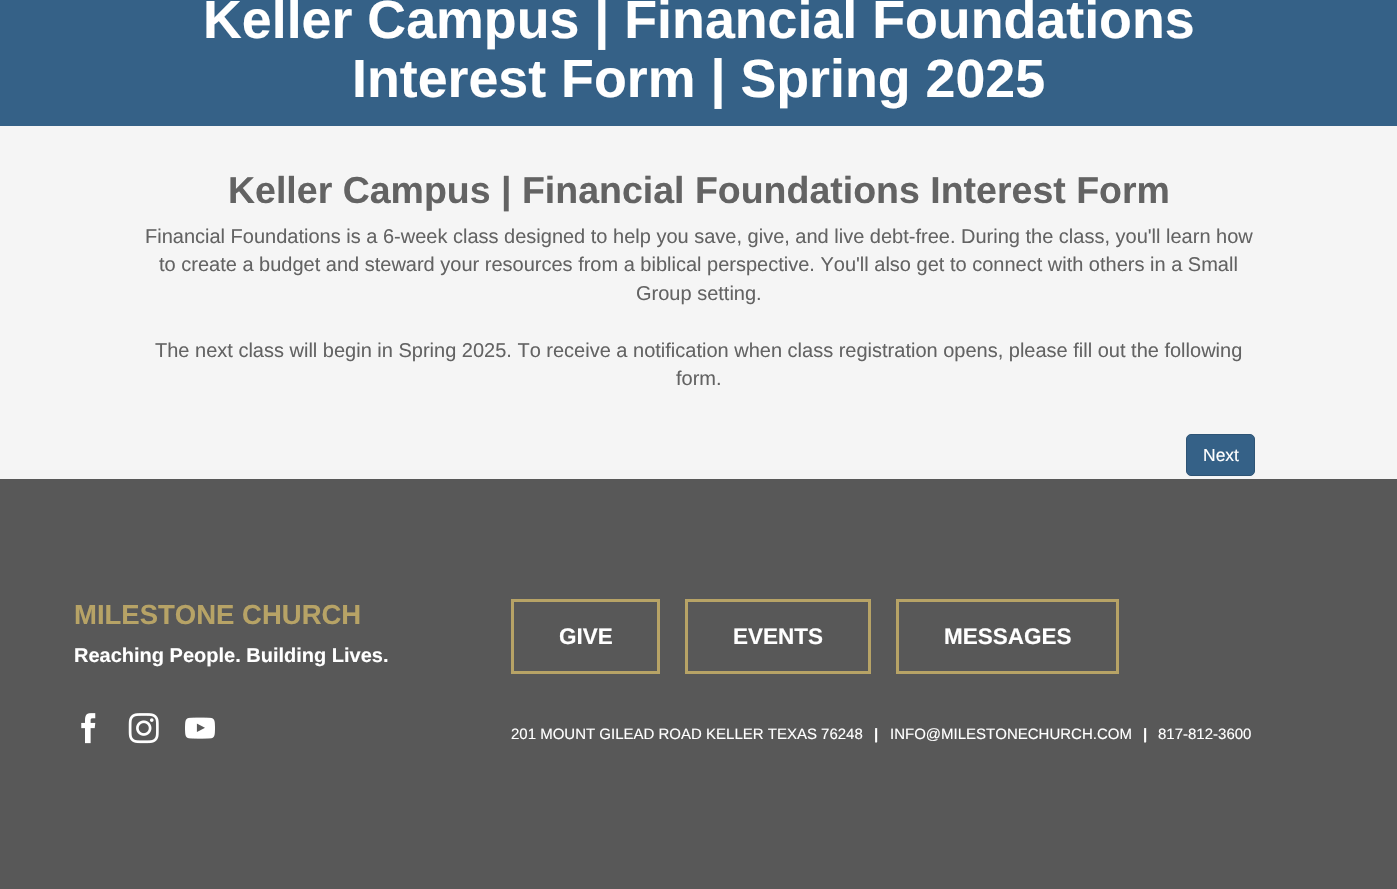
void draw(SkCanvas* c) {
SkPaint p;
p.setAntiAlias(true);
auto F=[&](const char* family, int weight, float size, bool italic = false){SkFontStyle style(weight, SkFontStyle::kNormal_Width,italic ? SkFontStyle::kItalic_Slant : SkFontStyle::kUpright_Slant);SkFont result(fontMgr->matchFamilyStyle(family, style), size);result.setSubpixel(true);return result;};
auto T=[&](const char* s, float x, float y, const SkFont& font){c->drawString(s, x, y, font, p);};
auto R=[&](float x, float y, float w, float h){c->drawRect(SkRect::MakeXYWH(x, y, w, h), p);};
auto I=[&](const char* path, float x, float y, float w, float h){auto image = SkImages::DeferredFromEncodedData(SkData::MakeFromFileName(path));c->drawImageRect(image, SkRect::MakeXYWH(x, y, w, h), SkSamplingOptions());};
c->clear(0xfff5f5f5);
p.setColor(0xff356187);
R(0,0,1397,126);
auto f1 = F("Liberation Sans",700,53.75);
p.setColor(0xffffffff);
T("Keller Campus | Financial Foundations",203,38,f1);
T("Interest Form | Spring 2025",352,97,f1);
auto f2 = F("Liberation Sans",700,37.5);
p.setColor(0xff636363);
T("Keller Campus | Financial Foundations Interest Form",228,203,f2);
auto f3 = F("Liberation Sans",400,20);
T("Financial Foundations is a 6-week class designed to help you save, give, and live debt-free. During the class, you'll learn how",145,243,f3);
T("to create a budget and steward your resources from a biblical perspective. You'll also get to connect with others in a Small",159,271,f3);
T("Group setting.",636,300,f3);
T("The next class will begin in Spring 2025. To receive a notification when class registration opens, please fill out the following",155,357,f3);
T("form.",676,385,f3);
p.setColor(0xff356187);
c->drawRoundRect(SkRect::MakeXYWH(1186.5,434.5,68,41),4.5,4.5,p);
p.setStroke(true);
p.setStrokeWidth(1);
p.setColor(0xff2e5475);
c->drawRoundRect(SkRect::MakeXYWH(1186.5,434.5,68,41),4.5,4.5,p);
auto f4 = F("Liberation Sans",400,17.5);
p.setStroke(false);
p.setColor(0xffffffff);
T("Next",1203,461,f4);
p.setColor(0xff585858);
R(0,479,1397,410);
auto f5 = F("Liberation Sans",700,27.5);
p.setColor(0xffb7a366);
T("MILESTONE CHURCH",74,624,f5);
auto f6 = F("Liberation Sans",700,20);
p.setColor(0xffffffff);
T("Reaching People. Building Lives.",74,662,f6);
I("1.png",81,713,15,31);
I("2.png",128,713,31,31);
I("3.png",185,717,30,22);
p.setStroke(true);
p.setStrokeWidth(3);
p.setColor(0xffb7a366);
c->drawRect(SkRect::MakeXYWH(512.5,600.5,146,72),p);
auto f7 = F("Liberation Sans",700,22.5);
p.setStroke(false);
p.setColor(0xffffffff);
T("GIVE",559,644,f7);
p.setStroke(true);
p.setColor(0xffb7a366);
c->drawRect(SkRect::MakeXYWH(686.5,600.5,183,72),p);
p.setStroke(false);
p.setColor(0xffffffff);
T("EVENTS",733,644,f7);
p.setStroke(true);
p.setColor(0xffb7a366);
c->drawRect(SkRect::MakeXYWH(897.5,600.5,220,72),p);
p.setStroke(false);
p.setColor(0xffffffff);
T("MESSAGES",944,644,f7);
auto f8 = F("Liberation Sans",400,15);
T("201 MOUNT GILEAD ROAD KELLER TEXAS 76248",511,739,f8);
auto f9 = F("Liberation Sans",700,15);
T("|",874,739,f9);
T("INFO@MILESTONECHURCH.COM",890,739,f8);
T("|",1143,739,f9);
T("817-812-3600",1158,739,f8);
}
